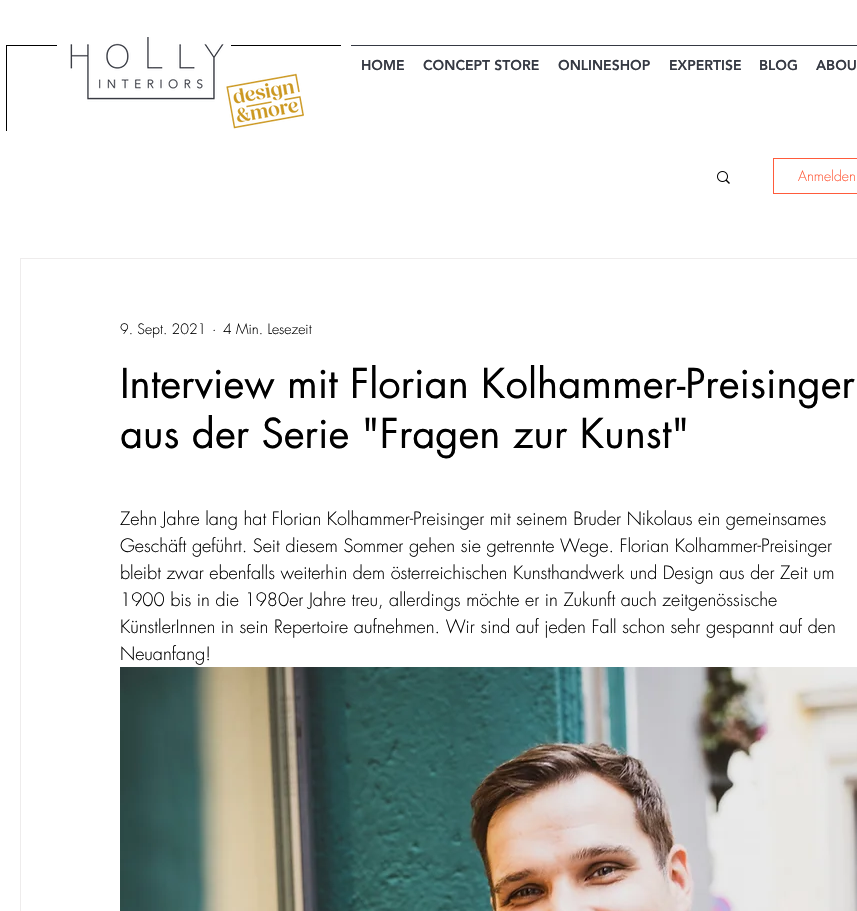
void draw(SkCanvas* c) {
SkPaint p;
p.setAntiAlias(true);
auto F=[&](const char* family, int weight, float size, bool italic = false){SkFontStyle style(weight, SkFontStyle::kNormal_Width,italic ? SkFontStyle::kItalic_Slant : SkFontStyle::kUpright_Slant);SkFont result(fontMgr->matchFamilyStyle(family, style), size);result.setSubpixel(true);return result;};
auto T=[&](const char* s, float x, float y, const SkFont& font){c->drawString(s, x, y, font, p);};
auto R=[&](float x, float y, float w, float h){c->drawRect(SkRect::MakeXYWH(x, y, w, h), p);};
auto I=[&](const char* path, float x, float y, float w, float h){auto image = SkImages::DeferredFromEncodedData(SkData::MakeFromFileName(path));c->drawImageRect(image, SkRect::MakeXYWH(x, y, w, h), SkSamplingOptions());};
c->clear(0xffffffff);
p.setColor(0xff000000);
R(6,45,51,1);
I("1.png",70,37,234,92);
R(231,45,110,1);
R(6,46,1,85);
p.setColor(0xff353943);
R(351,45,506,1);
auto f1 = F("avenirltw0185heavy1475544",900,14);
T("HOME",361,70,f1);
T("CONCEPT STORE",423,70,f1);
T("ONLINESHOP",558,70,f1);
T("EXPERTISE",669,70,f1);
T("BLOG",759,70,f1);
T("ABOU",816,70,f1);
I("2.png",717,171,13,13);
p.setStroke(true);
p.setStrokeWidth(1);
p.setColor(0xffff5b3b);
c->drawRect(SkRect::MakeXYWH(773.5,158.5,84,35),p);
auto f2 = F("futura",300,14);
p.setStroke(false);
T("Anmelden",798,181,f2);
p.setStroke(true);
p.setColor(0xffeeecec);
c->drawRect(SkRect::MakeXYWH(20.5,258.5,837,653),p);
p.setStroke(false);
p.setColor(0xff000000);
T("9. Sept. 2021",120,334,f2);
T("·",212,334,f2);
T("4 Min. Lesezeit",223,334,f2);
auto f3 = F("futura",400,40);
T("Interview mit Florian Kolhammer-Preisinger",120,398,f3);
T("aus der Serie \"Fragen zur Kunst\"",120,448,f3);
auto f4 = F("futura",300,18);
T("Zehn Jahre lang hat Florian Kolhammer-Preisinger mit seinem Bruder Nikolaus ein gemeinsames",120,525,f4);
T("Geschäft geführt. Seit diesem Sommer gehen sie getrennte Wege. Florian Kolhammer-Preisinger",120,552,f4);
T("bleibt zwar ebenfalls weiterhin dem österreichischen Kunsthandwerk und Design aus der Zeit um",120,579,f4);
T("1900 bis in die 1980er Jahre treu, allerdings möchte er in Zukunft auch zeitgenössische",120,606,f4);
T("KünstlerInnen in sein Repertoire aufnehmen. Wir sind auf jeden Fall schon sehr gespannt auf den",120,633,f4);
T("Neuanfang!",120,660,f4);
I("3.png",120,667,737,244);
}
